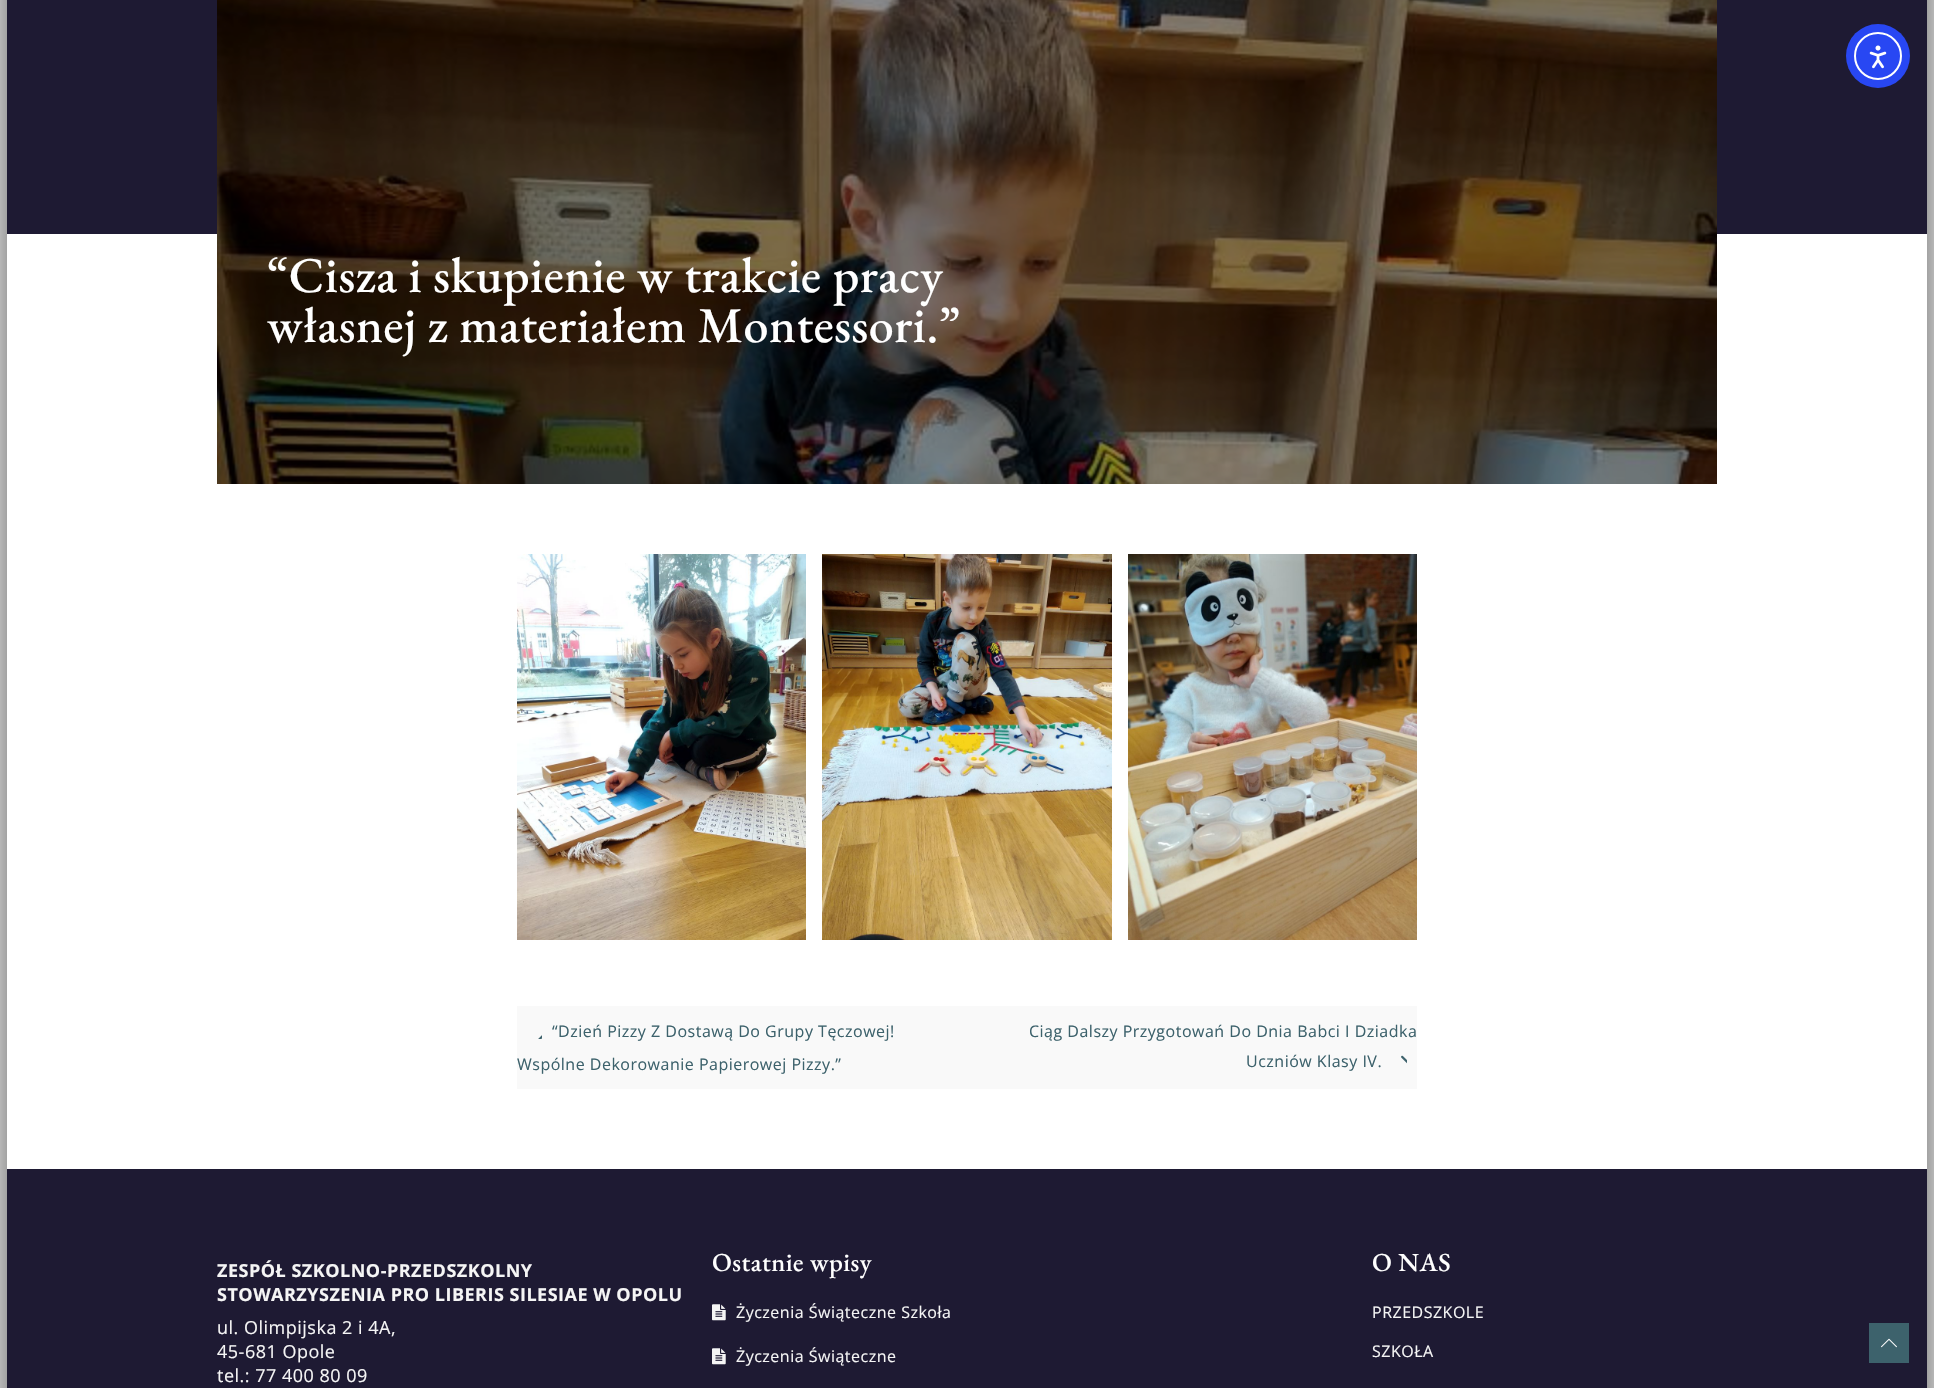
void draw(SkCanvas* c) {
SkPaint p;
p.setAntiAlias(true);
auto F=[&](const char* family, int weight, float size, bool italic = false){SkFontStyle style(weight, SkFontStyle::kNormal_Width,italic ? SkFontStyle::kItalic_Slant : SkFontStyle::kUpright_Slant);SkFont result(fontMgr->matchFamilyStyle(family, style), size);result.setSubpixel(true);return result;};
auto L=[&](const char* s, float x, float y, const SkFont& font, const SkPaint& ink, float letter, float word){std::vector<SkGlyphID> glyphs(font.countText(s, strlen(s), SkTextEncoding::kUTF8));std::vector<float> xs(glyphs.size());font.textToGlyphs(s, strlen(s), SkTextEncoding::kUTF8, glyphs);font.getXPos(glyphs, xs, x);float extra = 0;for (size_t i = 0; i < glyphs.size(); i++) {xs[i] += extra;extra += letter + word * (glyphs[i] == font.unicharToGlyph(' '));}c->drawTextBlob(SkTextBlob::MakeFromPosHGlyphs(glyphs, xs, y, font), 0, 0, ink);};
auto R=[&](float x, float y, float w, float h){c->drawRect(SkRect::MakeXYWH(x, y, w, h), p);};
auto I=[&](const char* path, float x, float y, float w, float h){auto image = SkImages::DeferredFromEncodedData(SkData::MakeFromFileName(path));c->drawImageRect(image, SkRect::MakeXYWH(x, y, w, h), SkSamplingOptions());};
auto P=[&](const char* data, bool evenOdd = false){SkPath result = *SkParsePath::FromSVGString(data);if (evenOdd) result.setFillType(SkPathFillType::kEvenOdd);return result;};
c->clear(0xffffffff);
c->save();
c->clipPath(P("M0 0h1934v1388h-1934zm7-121h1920v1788h-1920z",true),true);
p.setColor(0xff484848);
p.setMaskFilter(SkMaskFilter::MakeBlur(kNormal_SkBlurStyle, 25));
c->drawRect(SkRect::MakeXYWH(7,-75,1920,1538),p);
p.setMaskFilter(nullptr);
c->restore();
p.setColor(0xff1e1a33);
R(7,0,1920,234);
p.setColor(0xff2847f3);
c->drawCircle(1878,56,32,p);
p.setStroke(true);
p.setStrokeWidth(2);
p.setColor(0xffffffff);
c->drawCircle(1878,56,23,p);
I("1.png",1869,45,18,24);
I("2.png",217,0,1500,484);
auto f1 = F("EB Garamond",500,50);
p.setStroke(false);
L("“Cisza i skupienie w trakcie pracy",267,292,f1,p,.5,0);
L("własnej z materiałem Montessori.”",267,342,f1,p,.5,0);
I("3.png",517,554,289,386);
I("4.png",822,554,290,386);
I("5.png",1128,554,289,386);
p.setColor(0xfff9f9f9);
R(517,1006,900,83);
I("6.png",538,1035,4,4);
auto f2 = F("Open Sans",400,16);
p.setColor(0xff3d626c);
L("“Dzień Pizzy Z Dostawą Do Grupy Tęczowej!",552,1037,f2,p,.5,0);
L("Wspólne Dekorowanie Papierowej Pizzy.”",517,1070,f2,p,.5,0);
L("Ciąg Dalszy Przygotowań Do Dnia Babci I Dziadka",1029,1037,f2,p,.5,0);
L("Uczniów Klasy IV.",1246,1067,f2,p,.5,0);
I("7.png",1401,1055,6,9);
p.setColor(0xff1e1a33);
R(7,1169,1920,219);
auto f3 = F("Open Sans",700,18);
p.setColor(0xfff5f5f5);
L("ZESPÓŁ SZKOLNO-PRZEDSZKOLNY",217,1277,f3,p,.5,0);
L("STOWARZYSZENIA PRO LIBERIS SILESIAE W OPOLU",217,1301,f3,p,.5,0);
auto f4 = F("Open Sans",400,18);
L("ul. Olimpijska 2 i 4A,",217,1334,f4,p,.5,0);
L("45-681 Opole",217,1358,f4,p,.5,0);
L("tel.: 77 400 80 09",217,1382,f4,p,.5,0);
auto f5 = F("EB Garamond",500,26);
p.setColor(0xffffffff);
L("Ostatnie wpisy",712,1271,f5,p,.5,0);
I("8.png",712,1304,14,17);
p.setColor(0xfff5f5f5);
L("Życzenia Świąteczne Szkoła",736,1318,f2,p,.5,0);
I("8.png",712,1348,14,17);
L("Życzenia Świąteczne",736,1362,f2,p,.5,0);
p.setColor(0xffffffff);
L("O NAS",1372,1271,f5,p,.5,0);
p.setColor(0xfff5f5f5);
L("PRZEDSZKOLE",1372,1318,f2,p,.5,0);
L("SZKOŁA",1372,1357,f2,p,.5,0);
p.setColor(0xff3d626c);
R(1869,1323,40,40);
I("9.png",1881,1338,16,10);
}
